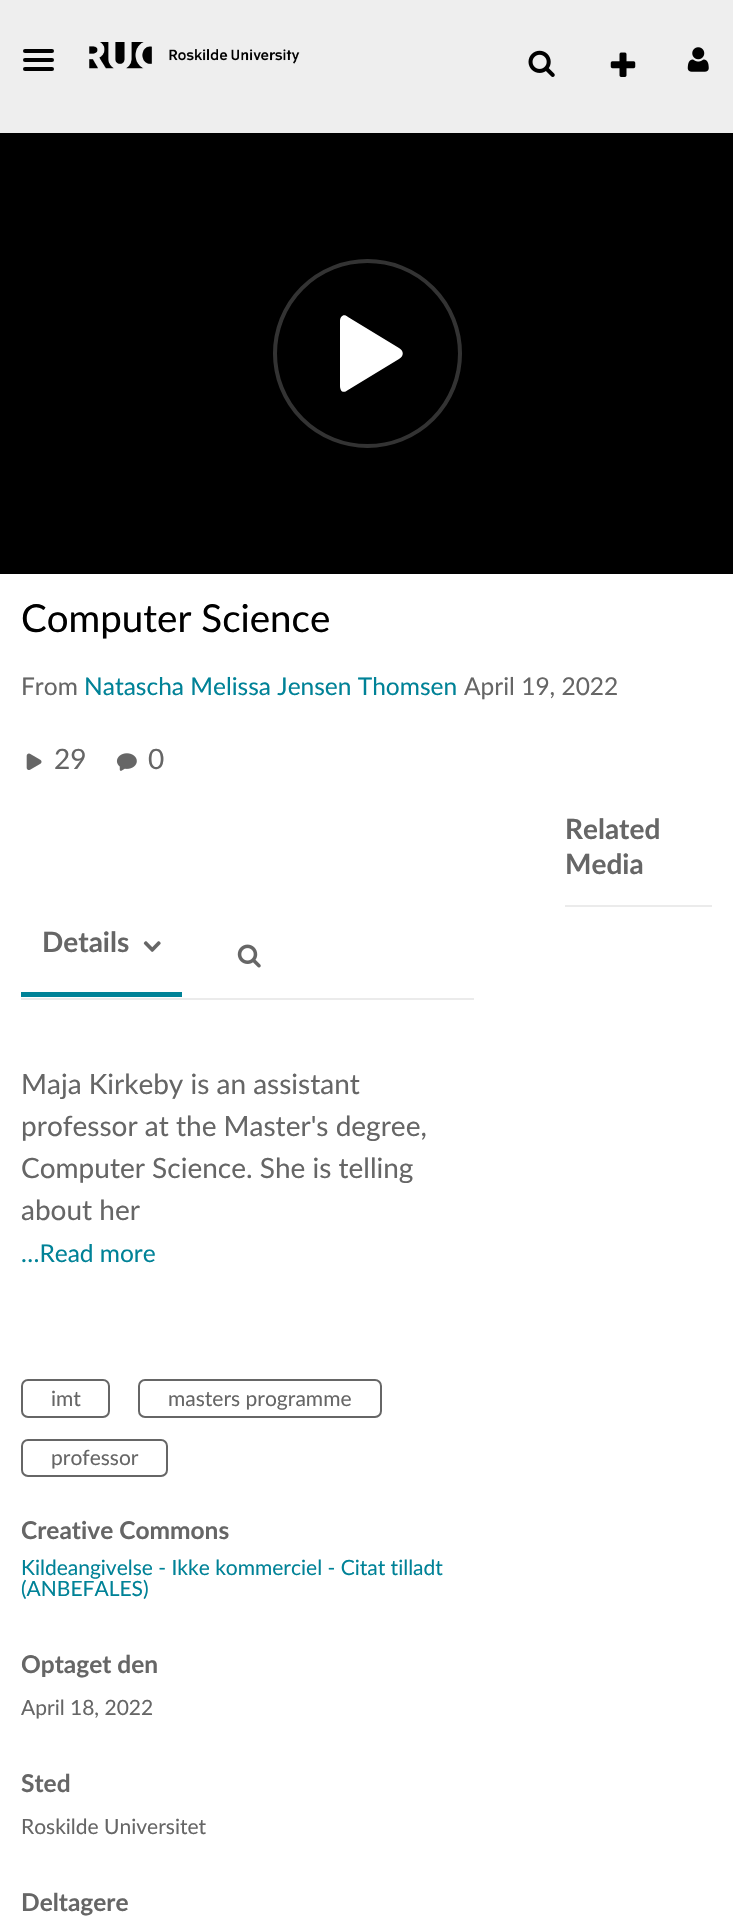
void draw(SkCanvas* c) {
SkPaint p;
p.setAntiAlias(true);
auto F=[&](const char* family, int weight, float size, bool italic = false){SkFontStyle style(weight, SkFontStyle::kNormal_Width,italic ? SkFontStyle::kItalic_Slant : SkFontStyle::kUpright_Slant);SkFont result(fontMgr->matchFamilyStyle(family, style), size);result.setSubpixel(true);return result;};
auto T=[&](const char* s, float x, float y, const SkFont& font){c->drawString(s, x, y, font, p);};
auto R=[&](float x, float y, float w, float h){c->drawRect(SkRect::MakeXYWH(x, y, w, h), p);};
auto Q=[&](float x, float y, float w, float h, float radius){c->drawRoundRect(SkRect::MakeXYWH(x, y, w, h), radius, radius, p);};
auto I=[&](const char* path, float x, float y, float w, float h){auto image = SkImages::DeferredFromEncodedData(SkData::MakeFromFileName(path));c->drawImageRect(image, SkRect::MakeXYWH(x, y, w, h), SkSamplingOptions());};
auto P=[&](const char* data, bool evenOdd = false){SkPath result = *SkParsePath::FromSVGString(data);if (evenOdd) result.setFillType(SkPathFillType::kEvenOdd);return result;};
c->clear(0xffffffff);
p.setColor(0xffeeeeee);
R(0,0,733,133);
p.setColor(0xff000000);
Q(23,49,31,4,2);
Q(23,58,31,4,2);
Q(23,67,31,4,2);
I("1.png",89,42,211,27);
I("2.png",528,50,27,27);
I("3.png",610,52,26,25);
I("4.png",687,47,22,25);
R(0,133,733,441);
p.setStroke(true);
p.setStrokeWidth(4);
p.setColor(0xff333333);
c->drawCircle(367.5,353.5,92.5,p);
p.setStroke(false);
p.setColor(0xffffffff);
c->drawPath(P("M399 348c5 3 5 8 0 11l-51 31c-5 4-8 1-8-4v-65c0-5 4-8 8-4z"),p);
auto f1 = F("Lato",400,38.5);
p.setColor(0xff000000);
T("Computer Science",21,632,f1);
auto f2 = F("Lato",400,24.5);
p.setColor(0xff666666);
T("From",21,695,f2);
p.setColor(0xff008297);
T("Natascha Melissa Jensen Thomsen",84,695,f2);
p.setColor(0xff666666);
T("April 19, 2022",464,695,f2);
I("5.png",26,753,16,17);
auto f3 = F("Lato",400,28);
T("29",54,769,f3);
I("6.png",116,753,21,18);
T("0",148,769,f3);
p.setColor(0xffebebeb);
R(565,905,147,2);
auto f4 = F("Lato",700,28);
p.setColor(0xff666666);
T("Related",565,839,f4);
T("Media",565,874,f4);
p.setColor(0xffebebeb);
R(21,998,453,2);
p.setColor(0xff008297);
R(21,992,161,5);
p.setColor(0xff666666);
T("Details",42,952,f4);
I("7.png",143,941,18,11);
I("8.png",237,944,24,24);
T("Maja Kirkeby is an assistant",21,1094,f3);
T("professor at the Master's degree,",21,1136,f3);
T("Computer Science. She is telling",21,1178,f3);
T("about her",21,1220,f3);
p.setColor(0xff008297);
T("…Read more",21,1262,f2);
p.setStroke(true);
p.setStrokeWidth(2);
p.setColor(0xff666666);
c->drawRoundRect(SkRect::MakeXYWH(22,1380,87,37),6,6,p);
auto f5 = F("Lato",400,21);
p.setStroke(false);
T("imt",51,1406,f5);
p.setStroke(true);
c->drawRoundRect(SkRect::MakeXYWH(139,1380,242,37),6,6,p);
p.setStroke(false);
T("masters programme",168,1406,f5);
p.setStroke(true);
c->drawRoundRect(SkRect::MakeXYWH(22,1440,145,36),6,6,p);
p.setStroke(false);
T("professor",51,1465,f5);
auto f6 = F("Lato",700,24.5);
T("Creative Commons",21,1539,f6);
p.setColor(0xff008297);
T("Kildeangivelse - Ikke kommerciel - Citat tilladt",21,1575,f5);
T("(ANBEFALES)",21,1596,f5);
p.setColor(0xff666666);
T("Optaget den",21,1673,f6);
T("April 18, 2022",21,1715,f5);
T("Sted",21,1792,f6);
T("Roskilde Universitet",21,1834,f5);
T("Deltagere",21,1911,f6);
}
